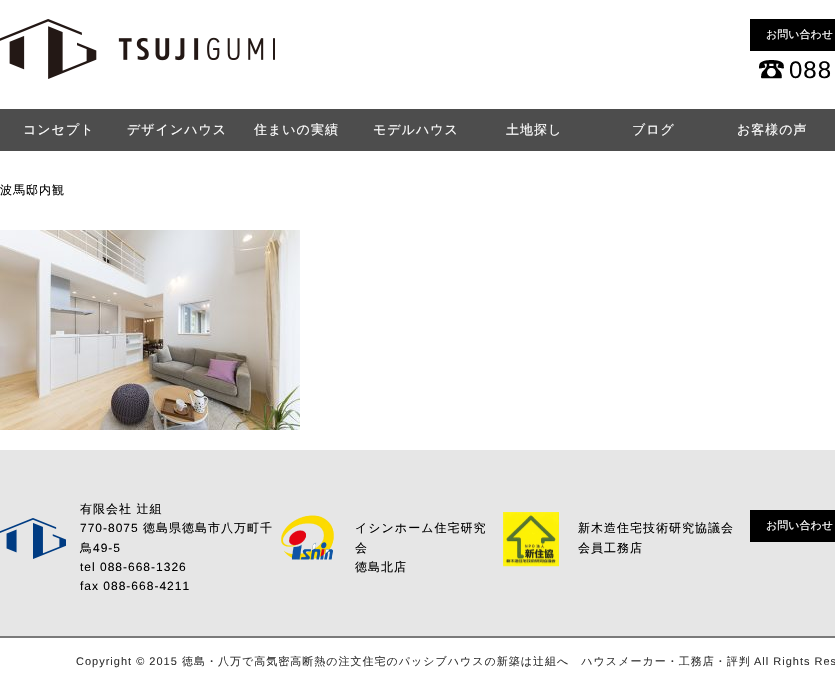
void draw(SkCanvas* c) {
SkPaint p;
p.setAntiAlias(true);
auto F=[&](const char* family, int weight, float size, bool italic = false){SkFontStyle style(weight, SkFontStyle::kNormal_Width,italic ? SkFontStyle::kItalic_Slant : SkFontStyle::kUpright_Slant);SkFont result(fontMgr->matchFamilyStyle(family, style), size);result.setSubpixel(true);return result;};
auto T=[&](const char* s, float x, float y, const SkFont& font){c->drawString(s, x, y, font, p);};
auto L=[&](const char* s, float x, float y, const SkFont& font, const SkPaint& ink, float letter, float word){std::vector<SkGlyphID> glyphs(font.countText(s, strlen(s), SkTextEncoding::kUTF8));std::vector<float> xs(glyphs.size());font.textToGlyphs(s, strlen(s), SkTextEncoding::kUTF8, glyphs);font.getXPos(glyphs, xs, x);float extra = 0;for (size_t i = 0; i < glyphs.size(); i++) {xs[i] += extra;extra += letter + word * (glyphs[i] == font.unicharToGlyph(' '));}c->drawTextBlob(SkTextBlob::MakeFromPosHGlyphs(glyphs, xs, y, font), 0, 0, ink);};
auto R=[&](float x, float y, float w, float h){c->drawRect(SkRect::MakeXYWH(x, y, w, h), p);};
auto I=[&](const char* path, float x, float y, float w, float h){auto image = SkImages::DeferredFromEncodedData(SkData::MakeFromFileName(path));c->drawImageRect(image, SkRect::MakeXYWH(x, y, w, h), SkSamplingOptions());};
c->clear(0xffffffff);
I("1.png",0,19,275,60);
p.setColor(0xff000000);
R(750,19,85,32);
auto f1 = F("WenQuanYi Zen Hei",500,11);
p.setColor(0xffffffff);
T("お問い合わせ",766,38,f1);
I("2.png",759,60,25,19);
auto f2 = F("Liberation Sans",400,24);
p.setColor(0xff000000);
L("088",789,78,f2,p,1,0);
p.setColor(0xff4d4d4d);
R(0,109,835,42);
auto f3 = F("WenQuanYi Zen Hei",500,13);
p.setColor(0xffffffff);
L("コンセプト",23,134,f3,p,1,0);
L("デザインハウス",127,134,f3,p,1,0);
L("住まいの実績",254,134,f3,p,1,0);
L("モデルハウス",373,134,f3,p,1,0);
L("土地探し",506,134,f3,p,1,0);
L("ブログ",632,134,f3,p,1,0);
L("お客様の声",737,134,f3,p,1,0);
auto f4 = F("WenQuanYi Zen Hei",500,12);
p.setColor(0xff000000);
L("波馬邸内観",0,194,f4,p,1,0);
I("3.png",0,230,300,200);
p.setColor(0xffe6e6e6);
R(0,450,835,186);
I("4.png",0,518,66,41);
p.setColor(0xff000000);
L("有限会社 辻組",80,513,f4,p,1,0);
auto f5 = F("Liberation Sans",400,12);
L("770-8075",80,532,f5,p,1,0);
L("徳島県徳島市八万町千",143,532,f4,p,1,0);
L("鳥",80,552,f4,p,1,0);
L("49-5",93,552,f5,p,1,0);
L("tel 088-668-1326",80,571,f5,p,1,0);
L("fax 088-668-4211",80,590,f5,p,1,0);
I("5.png",281,515,53,45);
L("イシンホーム住宅研究",355,532,f4,p,1,0);
L("会",355,552,f4,p,1,0);
L("徳島北店",355,571,f4,p,1,0);
I("6.png",503,512,56,55);
L("新木造住宅技術研究協議会",578,532,f4,p,1,0);
L("会員工務店",578,552,f4,p,1,0);
R(750,510,85,32);
p.setColor(0xffffffff);
T("お問い合わせ",766,529,f1);
p.setColor(0xff7a7a7a);
R(0,636,835,2);
auto f6 = F("Liberation Sans",400,11);
p.setColor(0xff333333);
L("Copyright © 2015",76,665,f6,p,1,0);
L("徳島・八万で高気密高断熱の注文住宅のパッシブハウスの新築は辻組へ　ハウスメーカー・工務店・評判",182,665,f1,p,1,0);
L("All Rights Res",754,665,f6,p,1,0);
}
